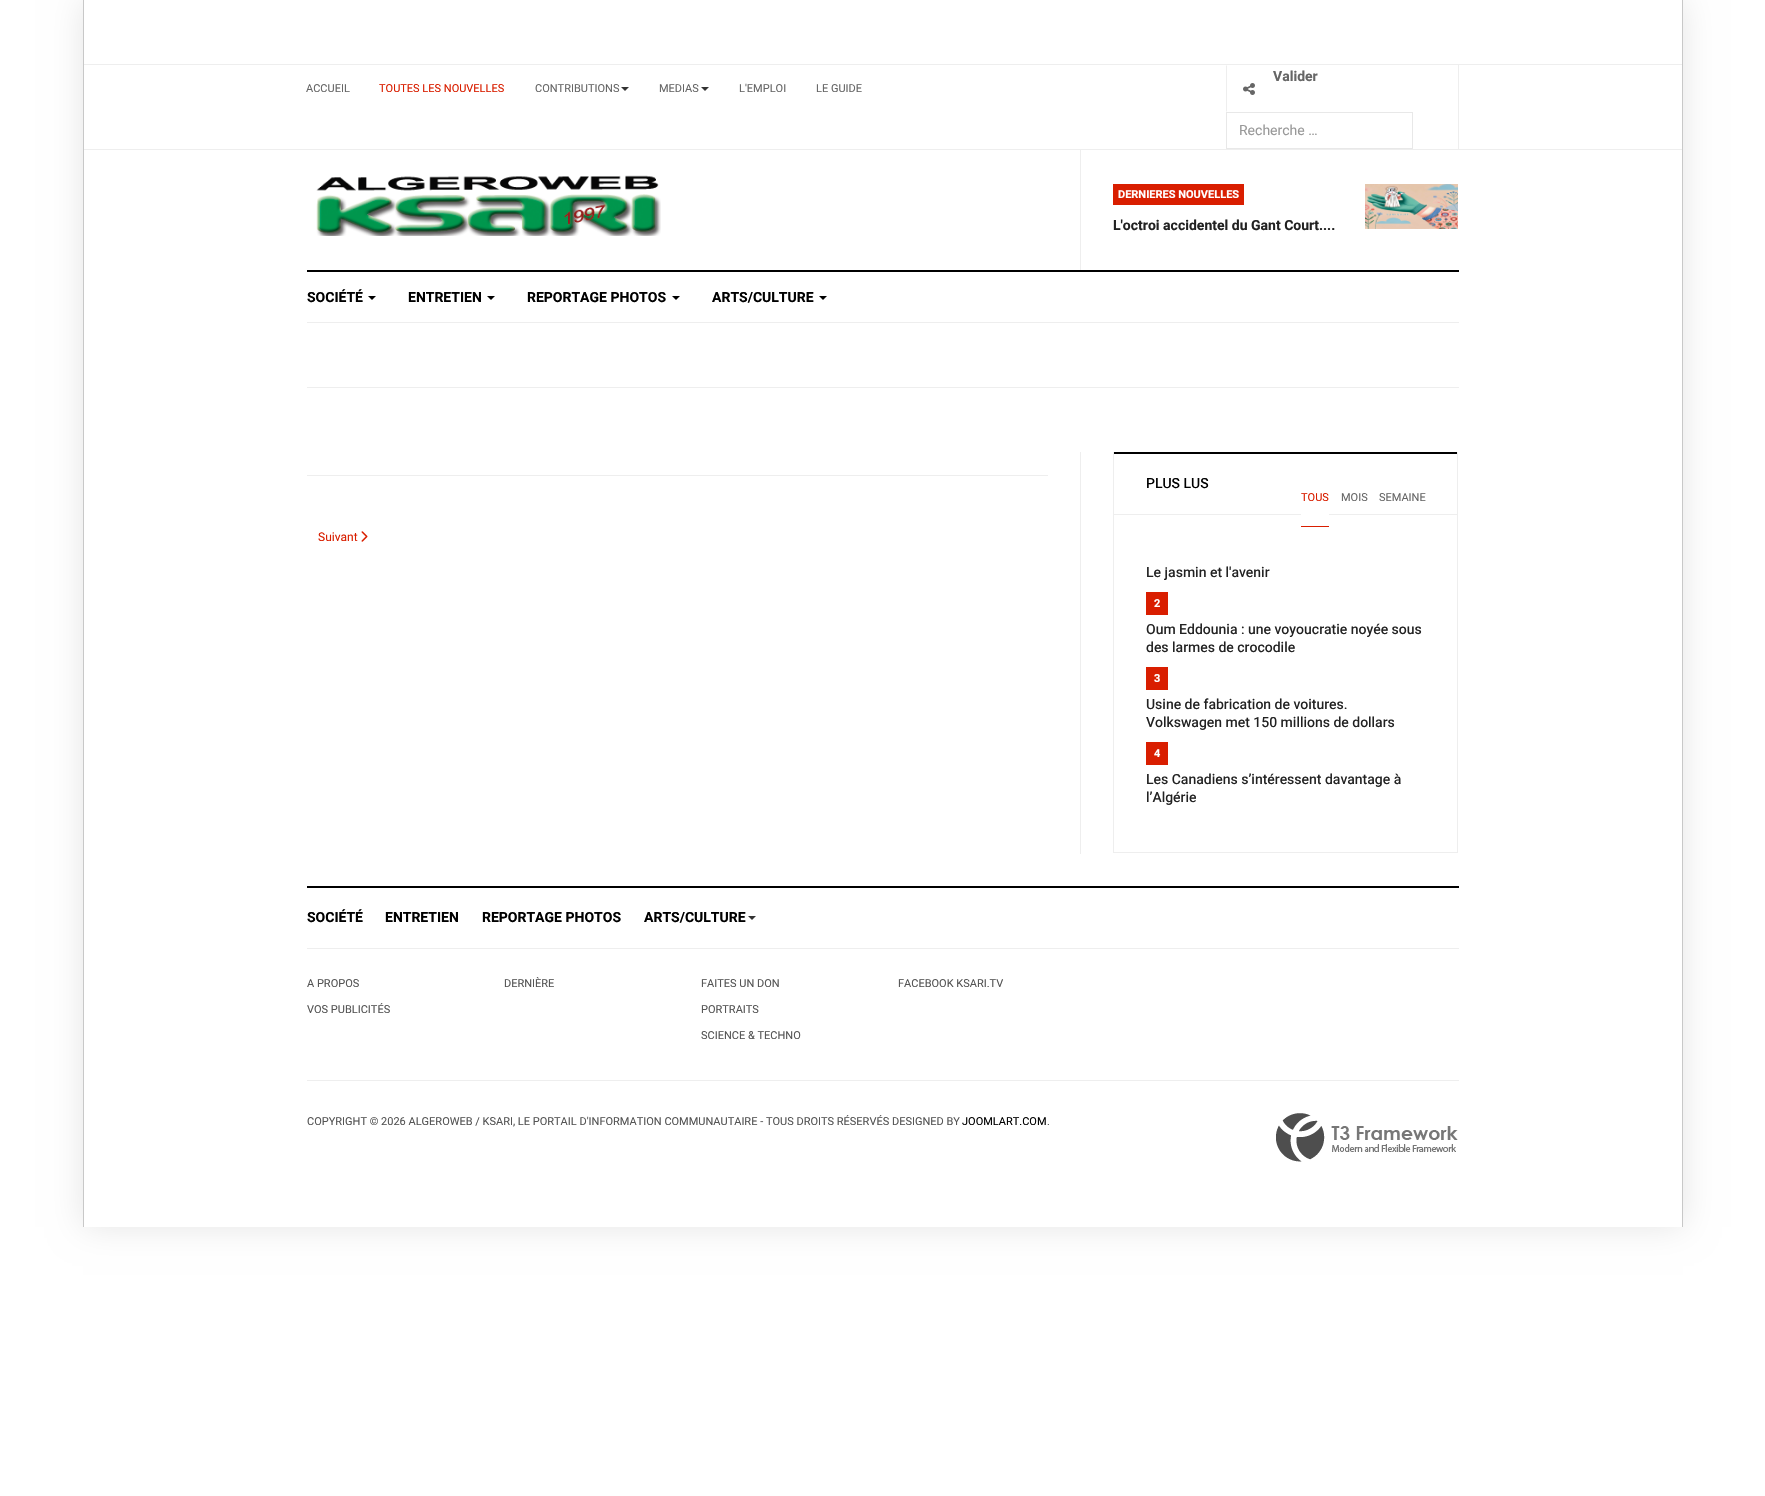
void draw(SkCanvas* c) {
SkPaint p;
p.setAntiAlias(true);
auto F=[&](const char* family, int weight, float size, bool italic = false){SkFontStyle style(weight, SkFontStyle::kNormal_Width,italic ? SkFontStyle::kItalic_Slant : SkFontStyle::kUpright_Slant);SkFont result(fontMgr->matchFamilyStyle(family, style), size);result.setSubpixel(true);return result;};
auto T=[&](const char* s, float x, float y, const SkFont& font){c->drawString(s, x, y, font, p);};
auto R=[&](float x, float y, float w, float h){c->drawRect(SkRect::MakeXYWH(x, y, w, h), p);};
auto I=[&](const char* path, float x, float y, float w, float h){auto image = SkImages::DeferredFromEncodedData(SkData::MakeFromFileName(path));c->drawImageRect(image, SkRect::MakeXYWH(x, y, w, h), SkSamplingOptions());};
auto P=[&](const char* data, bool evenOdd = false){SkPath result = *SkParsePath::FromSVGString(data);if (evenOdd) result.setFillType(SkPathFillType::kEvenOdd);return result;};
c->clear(0xffffffff);
c->save();
c->clipPath(P("M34 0h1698v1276h-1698zm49 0h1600v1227h-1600z",true),true);
p.setColor(0x1a000000);
p.setMaskFilter(SkMaskFilter::MakeBlur(kNormal_SkBlurStyle, 16));
c->drawRect(SkRect::MakeXYWH(83,0,1600,1227),p);
p.setMaskFilter(nullptr);
c->restore();
p.setColor(0xffc8c8c8);
R(1682,0,1,1227);
R(83,0,1,1227);
p.setColor(0xffeeeeee);
R(84,64,1598,1);
R(84,149,1598,1);
auto f1 = F("Heebo",400,11);
p.setColor(0xff666666);
T("ACCUEIL",306,92,f1);
p.setColor(0xffd91e00);
T("TOUTES LES NOUVELLES",379,92,f1);
p.setColor(0xff666666);
T("CONTRIBUTIONS",535,92,f1);
p.setColor(0xff333333);
c->drawPath(P("M621 87h8l-4 4z"),p);
p.setColor(0xff666666);
T("MEDIAS",659,92,f1);
p.setColor(0xff333333);
c->drawPath(P("M701 87h8l-4 4z"),p);
p.setColor(0xff666666);
T("L'EMPLOI",739,92,f1);
T("LE GUIDE",816,92,f1);
p.setColor(0xffeeeeee);
R(1458,65,1,84);
c->drawPath(P("M1226 112v-47l1 1v45z"),p);
I("1.png",1243,83,12,12);
auto f2 = F("Heebo",700,14);
p.setColor(0xff666666);
T("Valider",1273,81,f2);
p.setStroke(true);
p.setStrokeWidth(1);
p.setColor(0xffe8e8e8);
c->drawRect(SkRect::MakeXYWH(1226.5,112.5,186,36),p);
auto f3 = F("Heebo",400,14);
p.setStroke(false);
p.setColor(0xff999999);
T("Recherche …",1239,135,f3);
I("2.png",316,175,345,61);
p.setColor(0xffeeeeee);
R(1080,150,1,120);
p.setColor(0xffd91e00);
R(1113,184,131,21);
auto f4 = F("Heebo",700,11);
p.setColor(0xffffffff);
T("DERNIERES NOUVELLES",1118,198,f4);
p.setColor(0xff222222);
T("L'octroi accidentel du Gant Court....",1113,230,f2);
I("3.png",1365,184,93,45);
p.setColor(0xff000000);
R(307,270,1152,2);
p.setColor(0xffeeeeee);
R(307,322,1152,1);
p.setColor(0xff000000);
T("SOCIÉTÉ",307,302,f2);
c->drawPath(P("M368 296h8l-4 4z"),p);
T("ENTRETIEN",408,302,f2);
c->drawPath(P("M487 296h8l-4 4z"),p);
T("REPORTAGE PHOTOS",527,302,f2);
c->drawPath(P("M672 296h8l-4 4z"),p);
T("ARTS/CULTURE",712,302,f2);
c->drawPath(P("M819 296h8l-4 4z"),p);
p.setColor(0xffeeeeee);
R(307,387,1152,1);
R(307,475,741,1);
auto f5 = F("Heebo",400,12);
p.setColor(0xffd91e00);
T("Suivant",318,541,f5);
I("4.png",361,531,7,11);
p.setColor(0xffeeeeee);
R(1080,452,1,402);
R(1457,452,1,401);
R(1113,852,345,1);
R(1113,452,1,401);
p.setColor(0xff000000);
R(1114,452,343,2);
auto f6 = F("Heebo",500,14);
T("PLUS LUS",1146,488,f6);
p.setColor(0xffeeeeee);
R(1114,514,343,1);
p.setColor(0xffffffff);
R(1301,514,28,1);
p.setColor(0xffd91e00);
R(1301,526,28,1);
T("TOUS",1301,501,f1);
p.setColor(0xff666666);
T("MOIS",1341,501,f1);
T("SEMAINE",1379,501,f1);
p.setColor(0xff222222);
T("Le jasmin et l'avenir",1146,577,f6);
p.setColor(0xffd91e00);
R(1146,592,22,23);
p.setColor(0xffffffff);
T("2",1154,607,f4);
p.setColor(0xff222222);
T("Oum Eddounia : une voyoucratie noyée sous",1146,634,f6);
T("des larmes de crocodile",1146,652,f6);
p.setColor(0xffd91e00);
R(1146,667,22,23);
p.setColor(0xffffffff);
T("3",1154,682,f4);
p.setColor(0xff222222);
T("Usine de fabrication de voitures.",1146,709,f6);
T("Volkswagen met 150 millions de dollars",1146,727,f6);
p.setColor(0xffd91e00);
R(1146,742,22,23);
p.setColor(0xffffffff);
T("4",1154,757,f4);
p.setColor(0xff222222);
T("Les Canadiens s’intéressent davantage à",1146,784,f6);
T("l’Algérie",1146,802,f6);
p.setColor(0xff000000);
R(307,886,1152,2);
p.setColor(0xffeeeeee);
R(307,948,1152,1);
p.setColor(0xff000000);
T("SOCIÉTÉ",307,922,f2);
T("ENTRETIEN",385,922,f2);
T("REPORTAGE PHOTOS",482,922,f2);
T("ARTS/CULTURE",644,922,f2);
p.setColor(0xff333333);
c->drawPath(P("M748 916h8l-4 4z"),p);
p.setColor(0xff555555);
T("A PROPOS",307,987,f1);
T("VOS PUBLICITÉS",307,1013,f1);
T("DERNIÈRE",504,987,f1);
T("FAITES UN DON",701,987,f1);
T("PORTRAITS",701,1013,f1);
T("SCIENCE & TECHNO",701,1039,f1);
T("FACEBOOK KSARI.TV",898,987,f1);
p.setColor(0xffeeeeee);
R(307,1080,1152,1);
p.setColor(0xff555555);
T("COPYRIGHT © 2026 ALGEROWEB / KSARI, LE PORTAIL D'INFORMATION COMMUNAUTAIRE - TOUS DROITS RÉSERVÉS DESIGNED BY",307,1125,f1);
p.setColor(0xff000000);
T("JOOMLART.COM",962,1125,f1);
p.setColor(0xff555555);
T(".",1047,1125,f1);
I("5.png",1276,1113,182,49);
}
